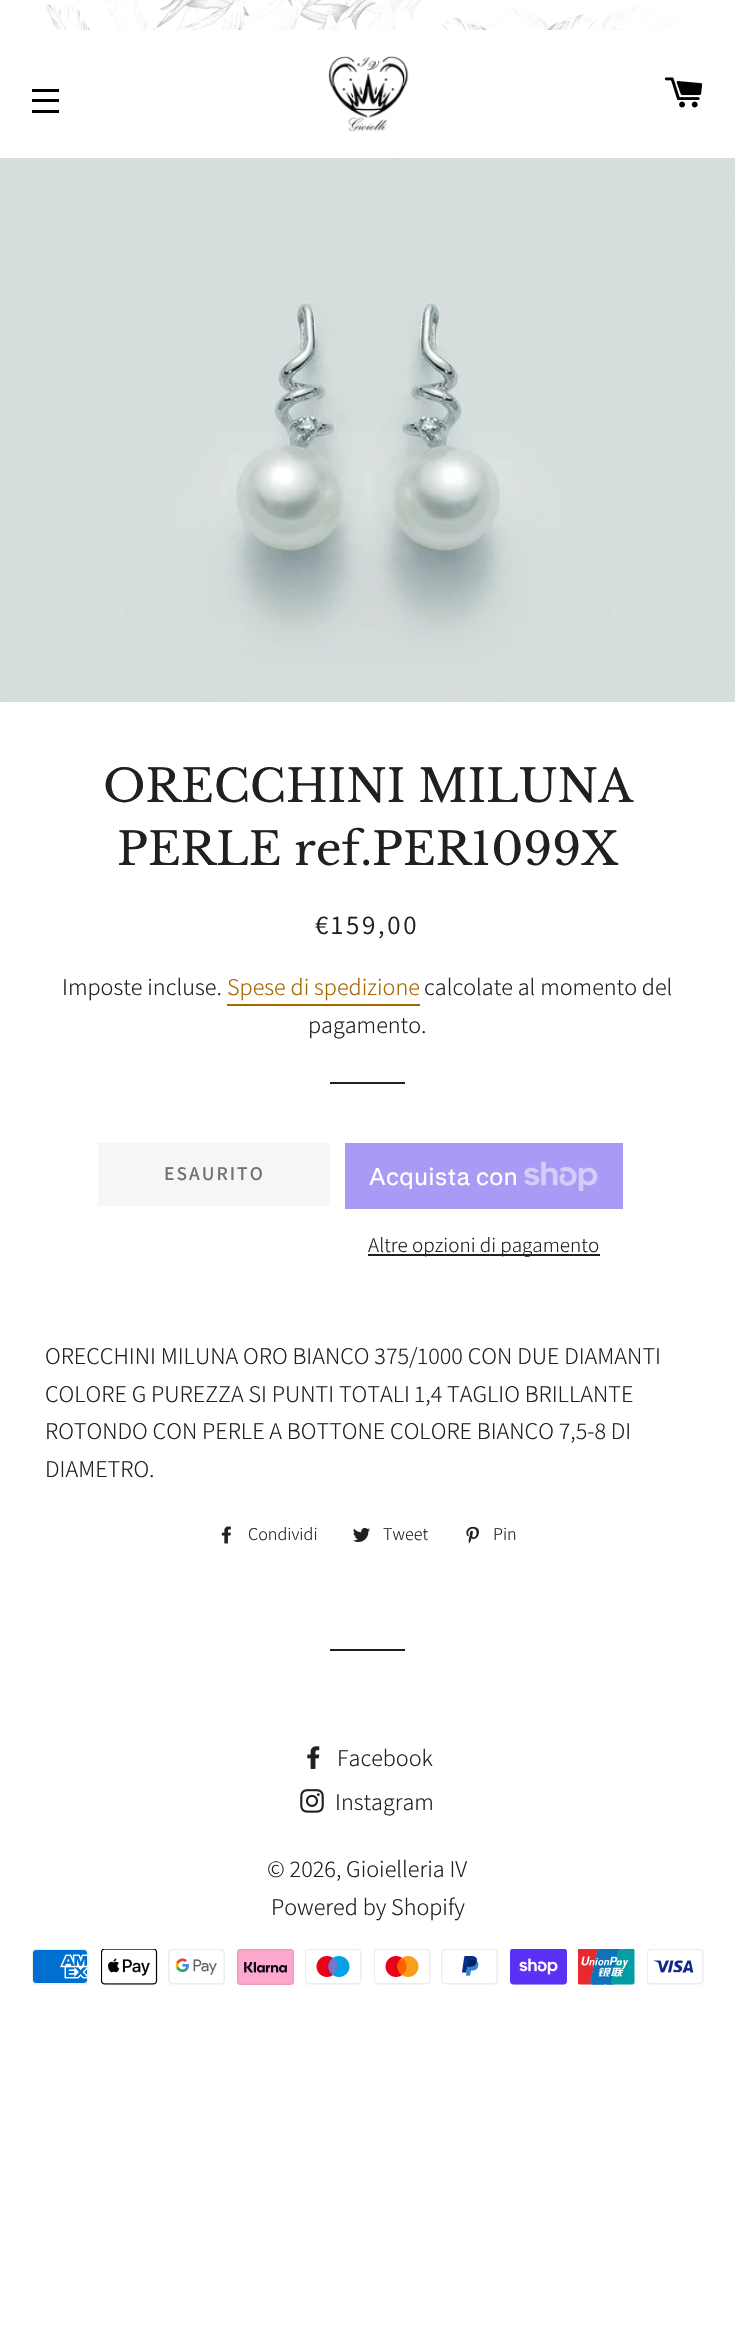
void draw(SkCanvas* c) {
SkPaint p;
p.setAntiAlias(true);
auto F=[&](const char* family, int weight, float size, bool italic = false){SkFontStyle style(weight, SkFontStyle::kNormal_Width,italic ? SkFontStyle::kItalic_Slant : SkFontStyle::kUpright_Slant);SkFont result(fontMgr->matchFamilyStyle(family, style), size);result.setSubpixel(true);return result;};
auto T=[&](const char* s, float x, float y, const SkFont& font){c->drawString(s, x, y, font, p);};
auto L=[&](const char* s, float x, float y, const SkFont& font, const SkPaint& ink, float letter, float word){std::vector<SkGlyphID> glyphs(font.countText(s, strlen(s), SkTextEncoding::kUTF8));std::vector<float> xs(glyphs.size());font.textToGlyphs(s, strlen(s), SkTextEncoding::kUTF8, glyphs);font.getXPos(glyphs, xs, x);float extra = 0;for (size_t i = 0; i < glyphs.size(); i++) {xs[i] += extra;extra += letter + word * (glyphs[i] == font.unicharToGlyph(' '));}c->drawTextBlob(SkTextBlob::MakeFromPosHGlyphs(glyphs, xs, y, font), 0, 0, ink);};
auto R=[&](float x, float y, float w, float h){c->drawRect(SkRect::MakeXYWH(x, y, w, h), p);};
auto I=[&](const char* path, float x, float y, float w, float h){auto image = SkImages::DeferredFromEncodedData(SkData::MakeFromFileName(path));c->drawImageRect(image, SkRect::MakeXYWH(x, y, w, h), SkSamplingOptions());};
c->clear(0xffffffff);
I("1.png",45,0,645,30);
p.setColor(0xff000000);
R(32,89,27,3);
R(32,99,27,3);
R(32,110,27,3);
I("2.png",328,55,81,77);
I("3.png",664,77,39,31);
I("4.png",0,158,735,544);
auto f1 = F("Libre Baskerville",400,45);
p.setColor(0xff1f2021);
T("ORECCHINI MILUNA",103,802,f1);
T("PERLE ref.PER1099X",117,865,f1);
auto f2 = F("Assistant",400,27);
L("€159,00",315,934,f2,p,2.75,0);
auto f3 = F("Assistant",300,24);
T("Imposte incluse.",62,995,f3);
p.setColor(0xffa56600);
T("Spese di spedizione",227,995,f3);
R(227,1004,193,2);
p.setColor(0xff1f2021);
T("calcolate al momento del",424,995,f3);
T("pagamento.",308,1033,f3);
R(330,1082,75,2);
p.setColor(0xfff6f6f6);
R(98,1143,232,63);
auto f4 = F("Assistant",600,19.5);
p.setColor(0xff717171);
L("ESAURITO",164,1180,f4,p,2,0);
p.setColor(0xffaa99f5);
R(345,1143,278,66);
auto f5 = F("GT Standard",400,24);
p.setColor(0xffffffff);
T("Acquista con",369,1185,f5);
I("5.png",524,1161,74,30);
p.setColor(0xff1f2021);
R(368,1254,232,2);
auto f6 = F("Assistant",300,21);
T("Altre opzioni di pagamento",368,1252,f6);
T("ORECCHINI MILUNA ORO BIANCO 375/1000 CON DUE DIAMANTI",45,1364,f3);
T("COLORE G PUREZZA SI PUNTI TOTALI 1,4 TAGLIO BRILLANTE",45,1402,f3);
T("ROTONDO CON PERLE A BOTTONE COLORE BIANCO 7,5-8 DI",45,1439,f3);
T("DIAMETRO.",45,1477,f3);
I("6.png",221,1526,10,18);
auto f7 = F("Assistant",300,18);
T("Condividi",248,1540,f7);
I("7.png",353,1527,17,15);
T("Tweet",383,1540,f7);
I("8.png",466,1526,13,18);
T("Pin",493,1540,f7);
R(330,1649,75,2);
I("9.png",307,1746,13,23);
T("Facebook",337,1766,f3);
I("10.png",300,1789,24,24);
T("Instagram",335,1810,f3);
T("© 2026, Gioielleria IV",267,1877,f3);
T("Powered by Shopify",271,1915,f3);
I("11.png",32,1949,57,36);
I("12.png",101,1949,57,36);
I("13.png",168,1949,57,36);
I("14.png",237,1949,57,36);
I("15.png",305,1949,57,36);
I("16.png",374,1949,57,36);
I("17.png",441,1949,57,36);
I("18.png",510,1949,57,36);
I("19.png",578,1949,57,36);
I("20.png",647,1949,57,36);
}
